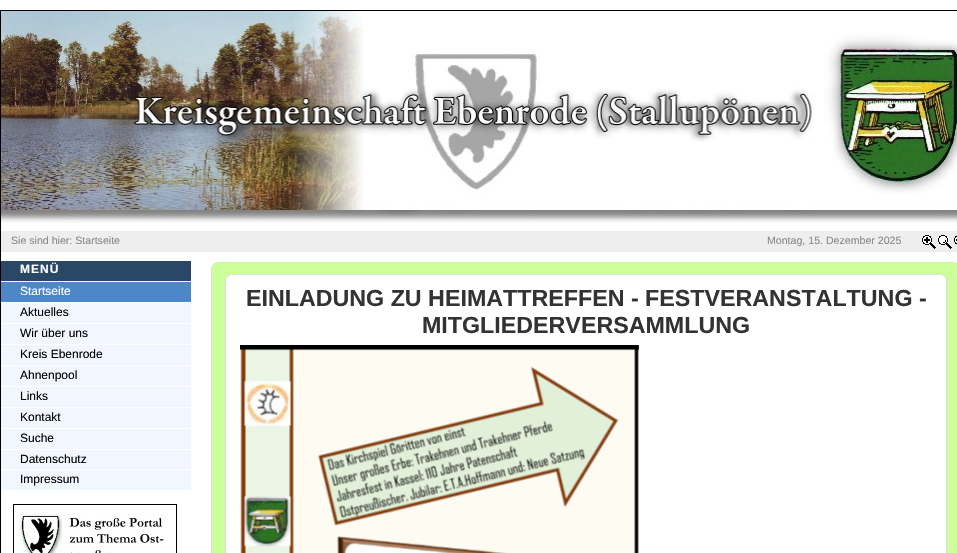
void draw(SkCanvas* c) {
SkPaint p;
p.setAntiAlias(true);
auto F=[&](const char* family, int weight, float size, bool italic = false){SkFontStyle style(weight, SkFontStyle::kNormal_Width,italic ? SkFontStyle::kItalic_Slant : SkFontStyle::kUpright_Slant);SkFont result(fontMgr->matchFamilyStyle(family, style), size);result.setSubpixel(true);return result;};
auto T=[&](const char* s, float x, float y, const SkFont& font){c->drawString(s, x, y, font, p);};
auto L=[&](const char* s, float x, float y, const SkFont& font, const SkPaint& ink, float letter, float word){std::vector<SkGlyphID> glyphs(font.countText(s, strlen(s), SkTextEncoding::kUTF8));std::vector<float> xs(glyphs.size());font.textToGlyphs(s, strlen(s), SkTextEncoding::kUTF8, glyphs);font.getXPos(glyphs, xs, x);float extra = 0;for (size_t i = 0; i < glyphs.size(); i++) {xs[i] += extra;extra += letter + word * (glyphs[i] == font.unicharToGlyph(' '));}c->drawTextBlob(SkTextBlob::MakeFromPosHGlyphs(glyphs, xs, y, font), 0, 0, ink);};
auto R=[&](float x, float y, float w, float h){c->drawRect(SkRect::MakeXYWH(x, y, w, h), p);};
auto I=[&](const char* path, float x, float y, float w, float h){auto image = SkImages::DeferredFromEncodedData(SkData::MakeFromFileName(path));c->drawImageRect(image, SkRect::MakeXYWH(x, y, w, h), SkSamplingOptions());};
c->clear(0xffffffff);
I("1.png",0,0,957,10);
p.setColor(0xff000000);
R(0,10,957,1);
R(0,10,1,221);
I("2.png",1,11,956,212);
R(0,231,1,322);
p.setColor(0xffeeeeee);
R(1,231,956,21);
auto f1 = F("Liberation Sans",400,10.6);
p.setColor(0xff888888);
T("Sie sind hier: Startseite",11,244,f1);
T("Montag, 15. Dezember 2025",767,244,f1);
I("3.png",922,235,14,14);
I("4.png",938,235,14,14);
I("5.png",954,236,3,8);
p.setColor(0xff294767);
R(1,261,190,20);
auto f2 = F("Liberation Sans",700,12);
p.setColor(0xffffffff);
L("MENÜ",20,273,f2,p,1,0);
p.setColor(0xff4d87c7);
R(1,282,190,20);
auto f3 = F("Liberation Sans",400,12);
p.setColor(0xffffffff);
T("Startseite",20,295,f3);
p.setColor(0xfff0f7ff);
R(1,303,190,20);
p.setColor(0xff000000);
T("Aktuelles",20,316,f3);
p.setColor(0xfff0f7ff);
R(1,324,190,20);
p.setColor(0xff000000);
T("Wir über uns",20,337,f3);
p.setColor(0xfff0f7ff);
R(1,345,190,20);
p.setColor(0xff000000);
T("Kreis Ebenrode",20,358,f3);
p.setColor(0xfff0f7ff);
R(1,366,190,20);
p.setColor(0xff000000);
T("Ahnenpool",20,379,f3);
p.setColor(0xfff0f7ff);
R(1,387,190,20);
p.setColor(0xff000000);
T("Links",20,400,f3);
p.setColor(0xfff0f7ff);
R(1,408,190,20);
p.setColor(0xff000000);
T("Kontakt",20,421,f3);
p.setColor(0xfff0f7ff);
R(1,429,190,20);
p.setColor(0xff000000);
T("Suche",20,442,f3);
p.setColor(0xfff0f7ff);
R(1,450,190,19);
p.setColor(0xff000000);
T("Datenschutz",20,463,f3);
p.setColor(0xfff0f7ff);
R(1,470,190,20);
p.setColor(0xff000000);
T("Impressum",20,483,f3);
p.setStroke(true);
p.setStrokeWidth(1);
c->drawRect(SkRect::MakeXYWH(13.5,504.5,163,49),p);
I("6.png",19,514,145,39);
p.setStroke(false);
p.setColor(0xffccff99);
R(216,262,740,1);
R(214,263,743,1);
p.setColor(0xffdddddd);
R(956,263,1,1);
R(214,263,2,1);
p.setColor(0xffccff99);
R(213,264,744,1);
p.setColor(0xffdddddd);
R(213,264,1,1);
p.setColor(0xffccff99);
R(212,265,745,288);
p.setColor(0xffdddddd);
R(212,265,1,2);
R(211,267,1,286);
R(230,274,712,1);
p.setColor(0xffffffff);
R(228,275,716,1);
p.setColor(0xffdddddd);
R(942,275,2,1);
R(228,275,2,1);
p.setColor(0xffffffff);
R(227,276,718,1);
p.setColor(0xffdddddd);
R(944,276,1,1);
R(227,276,1,1);
p.setColor(0xffffffff);
R(226,277,720,276);
p.setColor(0xffdddddd);
R(945,277,1,2);
R(226,277,1,2);
R(946,279,1,274);
R(225,279,1,274);
auto f4 = F("Liberation Sans",700,23.25);
p.setColor(0xff333333);
T("EINLADUNG ZU HEIMATTREFFEN - FESTVERANSTALTUNG -",246,306,f4);
T("MITGLIEDERVERSAMMLUNG",422,333,f4);
I("7.png",240,345,399,208);
}
